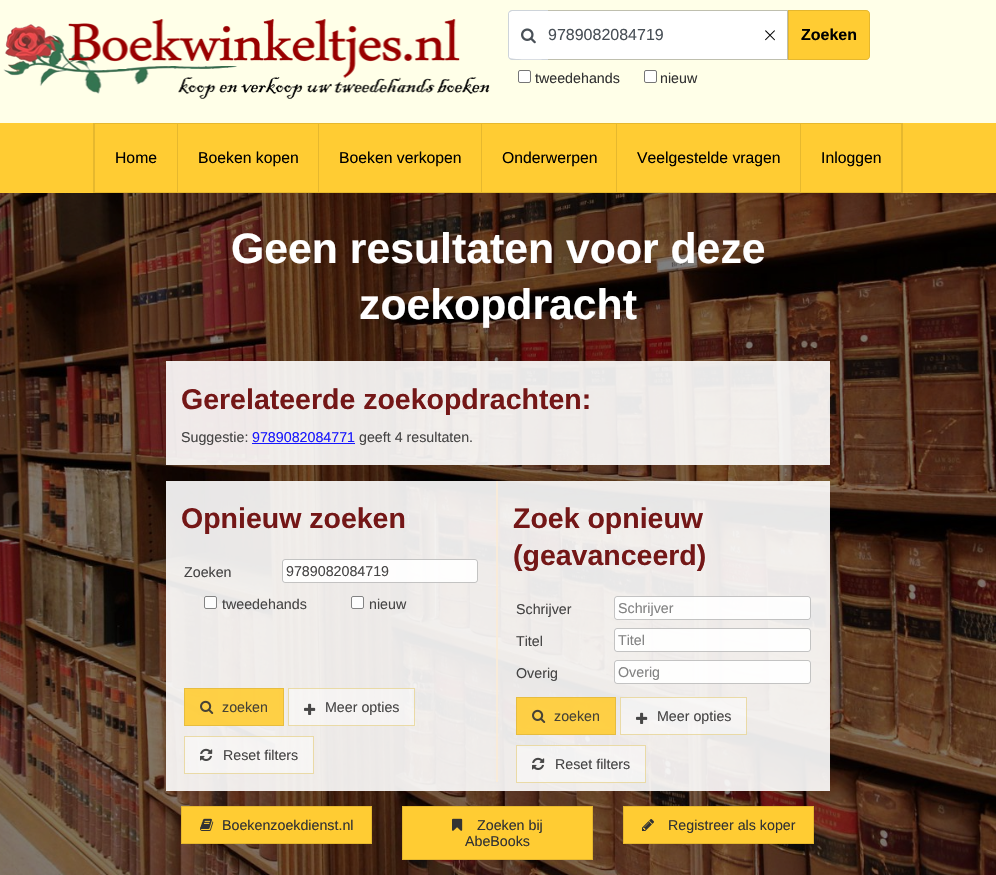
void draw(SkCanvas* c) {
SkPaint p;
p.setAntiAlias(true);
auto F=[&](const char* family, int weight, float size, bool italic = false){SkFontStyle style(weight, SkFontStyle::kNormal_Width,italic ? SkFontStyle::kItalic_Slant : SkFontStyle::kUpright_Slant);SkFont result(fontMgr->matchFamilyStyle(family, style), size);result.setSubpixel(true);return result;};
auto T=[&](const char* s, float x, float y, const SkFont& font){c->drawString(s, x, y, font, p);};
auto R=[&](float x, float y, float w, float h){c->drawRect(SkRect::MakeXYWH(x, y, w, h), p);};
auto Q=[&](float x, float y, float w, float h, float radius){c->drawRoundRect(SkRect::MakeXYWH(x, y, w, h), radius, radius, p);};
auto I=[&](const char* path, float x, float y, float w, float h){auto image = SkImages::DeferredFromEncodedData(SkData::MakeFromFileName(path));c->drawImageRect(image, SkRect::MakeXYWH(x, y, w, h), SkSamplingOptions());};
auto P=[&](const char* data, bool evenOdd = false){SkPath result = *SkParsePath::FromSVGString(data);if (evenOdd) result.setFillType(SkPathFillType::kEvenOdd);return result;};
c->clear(0xffffffff);
p.setColor(0xffffffe8);
R(0,0,996,123);
I("1.png",3,19,487,80);
p.setColor(0xffffffff);
c->drawPath(P("M512 10h36v50h-36c-2 0-4-2-4-4v-42c0-2 2-4 4-4z"),p);
p.setColor(0xffced4da);
c->drawPath(P("M512 10h36v50h-36c-2 0-4-2-4-4v-42c0-2 2-4 4-4zm0 1h36v48c-5 0-36 1-38-1l-1-1v-44l1-1z",true),p);
I("2.png",521,28,15,16);
p.setColor(0xffffffff);
R(548,11,239,48);
p.setColor(0xffbfbfae);
c->drawPath(P("M548 10h240l-1 1h-239z"),p);
p.setColor(0x40000000);
c->drawPath(P("M788 10v50l-1-1v-48z"),p);
c->drawPath(P("M788 60h-240v-1h239z"),p);
auto f1 = F("Liberation Sans",400,16);
p.setColor(0xff495057);
T("9789082084719",548,40,f1);
I("3.png",765,30,10,11);
p.setColor(0xffffcc33);
c->drawPath(P("M788 10h78c2 0 4 2 4 4v42c0 2-2 4-4 4h-78z"),p);
p.setStroke(true);
p.setStrokeWidth(1);
p.setColor(0x1a000000);
c->drawPath(P("M788.5 10.5h77.5c2 0 3.5 1.5 3.5 3.5v42c0 2-1.5 3.5-3.5 3.5h-77.5z"),p);
auto f2 = F("Liberation Sans",700,16);
p.setStroke(false);
p.setColor(0xff000000);
T("Zoeken",801,40,f2);
p.setColor(0xffffffff);
c->drawRoundRect(SkRect::MakeXYWH(518.5,70.5,12,12),1.5,1.5,p);
p.setStroke(true);
p.setColor(0xff767676);
c->drawRoundRect(SkRect::MakeXYWH(518.5,70.5,12,12),1.5,1.5,p);
auto f3 = F("Liberation Sans",400,14.25);
p.setStroke(false);
p.setColor(0xff333333);
T("tweedehands",535,83,f3);
p.setColor(0xffffffff);
c->drawRoundRect(SkRect::MakeXYWH(644.5,70.5,12,12),1.5,1.5,p);
p.setStroke(true);
p.setColor(0xff767676);
c->drawRoundRect(SkRect::MakeXYWH(644.5,70.5,12,12),1.5,1.5,p);
p.setStroke(false);
p.setColor(0xff333333);
T("nieuw",660,83,f3);
p.setColor(0xffffcc33);
R(0,123,996,70);
p.setStroke(true);
p.setColor(0xffe6b82e);
c->drawRect(SkRect::MakeXYWH(93.5,123.5,809,69),p);
p.setStroke(false);
R(177,124,1,68);
R(94,124,1,68);
auto f4 = F("Liberation Sans",400,15.75);
p.setColor(0xff000000);
T("Home",115,163,f4);
p.setColor(0xffe6b82e);
R(318,124,1,68);
p.setColor(0xff000000);
T("Boeken kopen",198,163,f4);
p.setColor(0xffe6b82e);
R(481,124,1,68);
p.setColor(0xff000000);
T("Boeken verkopen",339,163,f4);
p.setColor(0xffe6b82e);
R(616,124,1,68);
p.setColor(0xff000000);
T("Onderwerpen",502,163,f4);
p.setColor(0xffe6b82e);
R(800,124,1,68);
p.setColor(0xff000000);
T("Veelgestelde vragen",637,163,f4);
p.setColor(0xffe6b82e);
R(901,124,1,68);
p.setColor(0xff000000);
T("Inloggen",821,163,f4);
I("4.png",0,193,996,682);
auto f5 = F("Liberation Sans",700,42.75);
p.setColor(0xffffffff);
T("Geen resultaten voor deze",231,263,f5);
T("zoekopdracht",359,319,f5);
p.setColor(0xe6ffffff);
R(166,361,664,104);
auto f6 = F("Liberation Sans",700,28.5);
p.setColor(0xff741717);
T("Gerelateerde zoekopdrachten:",181,409,f6);
p.setColor(0xff464545);
T("Suggestie:",181,442,f3);
p.setColor(0xff1817fd);
T("9789082084771",252,442,f3);
p.setColor(0xe60000ff);
R(252,443,103,1);
p.setColor(0xff464545);
T("geeft 4 resultaten.",359,442,f3);
p.setColor(0xe6ffffff);
R(166,481,664,310);
p.setColor(0xe6faebd7);
R(496,481,2,301);
p.setColor(0xff741717);
T("Opnieuw zoeken",181,528,f6);
p.setColor(0xff464545);
T("Zoeken",184,577,f3);
p.setColor(0xe6ffffff);
Q(282,559,196,24,3);
p.setStroke(true);
p.setColor(0x3b000000);
c->drawRoundRect(SkRect::MakeXYWH(282.5,559.5,195,23),2.5,2.5,p);
p.setStroke(false);
p.setColor(0xff464545);
T("9789082084719",286,576,f3);
p.setColor(0xe6ffffff);
Q(204,596,13,13,2);
p.setStroke(true);
p.setColor(0xe6767676);
c->drawRoundRect(SkRect::MakeXYWH(204.5,596.5,12,12),1.5,1.5,p);
p.setStroke(false);
p.setColor(0xff464545);
T("tweedehands",222,609,f3);
p.setColor(0xe6ffffff);
Q(351,596,13,13,2);
p.setStroke(true);
p.setColor(0xe6767676);
c->drawRoundRect(SkRect::MakeXYWH(351.5,596.5,12,12),1.5,1.5,p);
p.setStroke(false);
p.setColor(0xff464545);
T("nieuw",369,609,f3);
p.setColor(0xe6ffcc33);
c->drawRect(SkRect::MakeXYWH(184.5,688.5,99,37),p);
p.setStroke(true);
p.setColor(0xffe7bd3f);
c->drawRect(SkRect::MakeXYWH(184.5,688.5,99,37),p);
I("5.png",200,700,14,14);
p.setStroke(false);
p.setColor(0xff474335);
T("zoeken",222,712,f3);
p.setColor(0x73ffffff);
R(288,688,127,38);
p.setStroke(true);
p.setColor(0xe6e8d79d);
c->drawRect(SkRect::MakeXYWH(288.5,688.5,126,37),p);
I("6.png",304,703,12,12);
p.setStroke(false);
p.setColor(0xff464545);
T("Meer opties",325,712,f3);
p.setColor(0x73ffffff);
R(184,736,130,38);
p.setStroke(true);
p.setColor(0xe6e8d79d);
c->drawRect(SkRect::MakeXYWH(184.5,736.5,129,37),p);
I("7.png",200,748,13,13);
p.setStroke(false);
p.setColor(0xff464545);
T("Reset filters",223,760,f3);
p.setColor(0xff741717);
T("Zoek opnieuw",513,528,f6);
T("(geavanceerd)",513,565,f6);
p.setColor(0xff464545);
T("Schrijver",516,614,f3);
p.setColor(0xe6ffffff);
Q(614,596,197,24,3);
p.setStroke(true);
p.setColor(0x3b000000);
c->drawRoundRect(SkRect::MakeXYWH(614.5,596.5,196,23),2.5,2.5,p);
p.setStroke(false);
p.setColor(0xff838383);
T("Schrijver",618,613,f3);
p.setColor(0xff464545);
T("Titel",516,646,f3);
p.setColor(0xe6ffffff);
Q(614,628,197,24,3);
p.setStroke(true);
p.setColor(0x3b000000);
c->drawRoundRect(SkRect::MakeXYWH(614.5,628.5,196,23),2.5,2.5,p);
p.setStroke(false);
p.setColor(0xff838383);
T("Titel",618,645,f3);
p.setColor(0xff464545);
T("Overig",516,678,f3);
p.setColor(0xe6ffffff);
Q(614,660,197,24,3);
p.setStroke(true);
p.setColor(0x3b000000);
c->drawRoundRect(SkRect::MakeXYWH(614.5,660.5,196,23),2.5,2.5,p);
p.setStroke(false);
p.setColor(0xff838383);
T("Overig",618,677,f3);
p.setColor(0xe6ffcc33);
c->drawRect(SkRect::MakeXYWH(516.5,697.5,99,37),p);
p.setStroke(true);
p.setColor(0xffe6bc3f);
c->drawRect(SkRect::MakeXYWH(516.5,697.5,99,37),p);
I("8.png",532,709,14,14);
p.setStroke(false);
p.setColor(0xff474335);
T("zoeken",554,721,f3);
p.setColor(0x73ffffff);
R(620,697,127,38);
p.setStroke(true);
p.setColor(0xe6e8d79d);
c->drawRect(SkRect::MakeXYWH(620.5,697.5,126,37),p);
I("9.png",636,712,12,12);
p.setStroke(false);
p.setColor(0xff464545);
T("Meer opties",657,721,f3);
p.setColor(0x73ffffff);
R(516,745,130,38);
p.setStroke(true);
p.setColor(0xe6e8d79d);
c->drawRect(SkRect::MakeXYWH(516.5,745.5,129,37),p);
I("10.png",532,757,13,13);
p.setStroke(false);
p.setColor(0xff464545);
T("Reset filters",555,769,f3);
p.setColor(0xffffcc33);
c->drawRect(SkRect::MakeXYWH(181.5,806.5,190,37),p);
p.setStroke(true);
p.setColor(0xffe6b82e);
c->drawRect(SkRect::MakeXYWH(181.5,806.5,190,37),p);
I("11.png",200,818,14,13);
p.setStroke(false);
p.setColor(0xff333333);
T("Boekenzoekdienst.nl",222,830,f3);
p.setColor(0xffffcc33);
c->drawRect(SkRect::MakeXYWH(402.5,806.5,190,53),p);
p.setStroke(true);
p.setColor(0xffe6b82e);
c->drawRect(SkRect::MakeXYWH(402.5,806.5,190,53),p);
I("12.png",452,818,11,13);
p.setStroke(false);
p.setColor(0xff333333);
T("Zoeken bij",477,830,f3);
T("AbeBooks",465,846,f3);
p.setColor(0xffffcc33);
c->drawRect(SkRect::MakeXYWH(623.5,806.5,190,37),p);
p.setStroke(true);
p.setColor(0xffe6b82e);
c->drawRect(SkRect::MakeXYWH(623.5,806.5,190,37),p);
I("13.png",642,819,12,12);
p.setStroke(false);
p.setColor(0xff333333);
T("Registreer als koper",668,830,f3);
}
